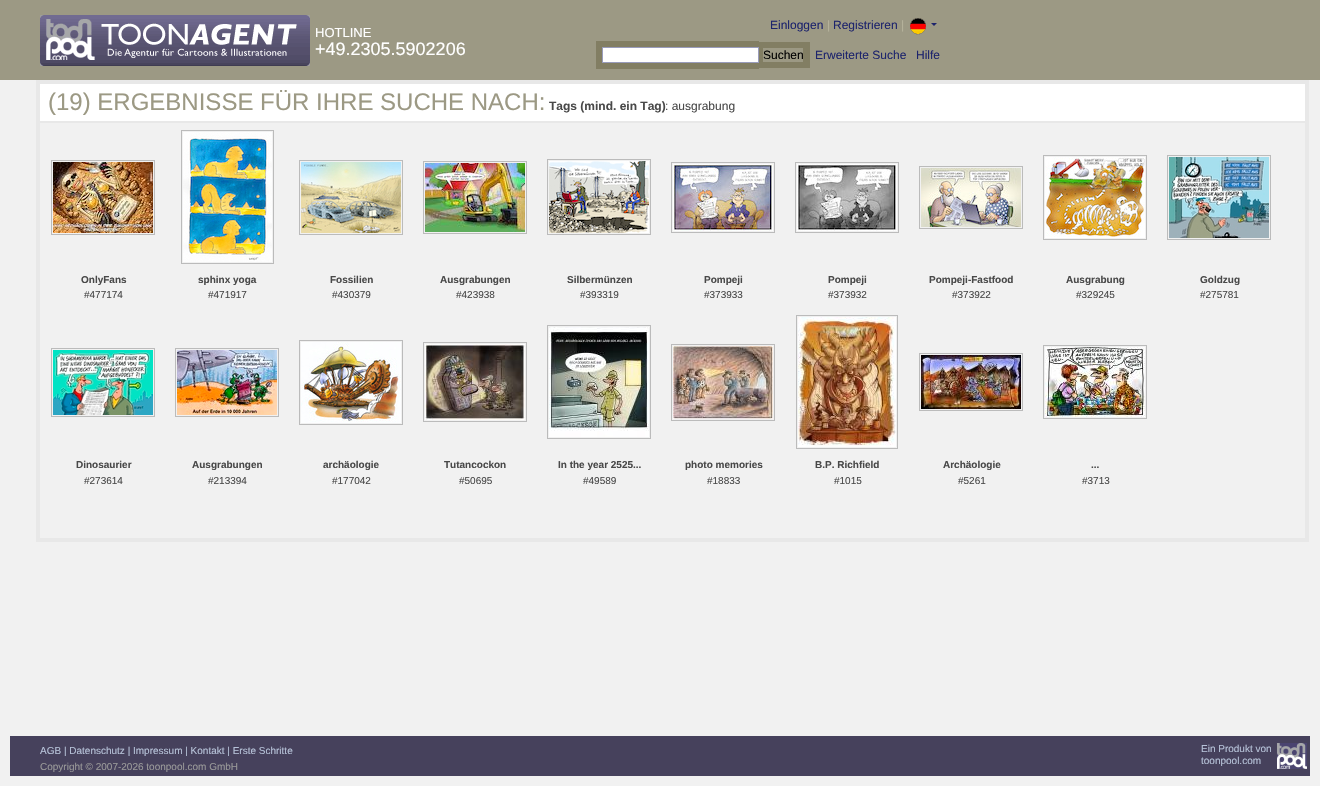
void draw(SkCanvas* c) {
SkPaint p;
p.setAntiAlias(true);
auto F=[&](const char* family, int weight, float size, bool italic = false){SkFontStyle style(weight, SkFontStyle::kNormal_Width,italic ? SkFontStyle::kItalic_Slant : SkFontStyle::kUpright_Slant);SkFont result(fontMgr->matchFamilyStyle(family, style), size);result.setSubpixel(true);return result;};
auto T=[&](const char* s, float x, float y, const SkFont& font){c->drawString(s, x, y, font, p);};
auto R=[&](float x, float y, float w, float h){c->drawRect(SkRect::MakeXYWH(x, y, w, h), p);};
auto I=[&](const char* path, float x, float y, float w, float h){auto image = SkImages::DeferredFromEncodedData(SkData::MakeFromFileName(path));c->drawImageRect(image, SkRect::MakeXYWH(x, y, w, h), SkSamplingOptions());};
auto P=[&](const char* data, bool evenOdd = false){SkPath result = *SkParsePath::FromSVGString(data);if (evenOdd) result.setFillType(SkPathFillType::kEvenOdd);return result;};
c->clear(0xfff1f1f1);
p.setColor(0xff9c9984);
R(0,0,1320,80);
I("1.png",40,15,270,51);
auto f1 = F("Liberation Sans",400,13);
p.setColor(0xffffffff);
T("HOTLINE",315,37,f1);
auto f2 = F("Liberation Sans",400,18);
T("+49.2305.5902206",315,55,f2);
auto f3 = F("Liberation Sans",400,12);
p.setColor(0xff1d246c);
T("Einloggen",770,29,f3);
p.setColor(0xffb5b29b);
T("|",827,29,f3);
p.setColor(0xff1d246c);
T("Registrieren",833,29,f3);
p.setColor(0xffb5b29b);
T("|",901,29,f3);
I("2.png",910,18,16,17);
p.setColor(0xff1d246c);
c->drawPath(P("M931 23h6l-3 3z"),p);
p.setColor(0xff827e63);
R(596,41,163,28);
R(759,42,51,26);
p.setColor(0xffffffff);
c->drawRect(SkRect::MakeXYWH(602.5,47.5,156,15),p);
p.setStroke(true);
p.setStrokeWidth(1);
p.setColor(0xff999cbb);
c->drawRect(SkRect::MakeXYWH(602.5,47.5,156,15),p);
p.setStroke(false);
p.setColor(0xff9c9984);
R(763,48,40,14);
p.setColor(0xff000000);
T("Suchen",763,59,f3);
p.setColor(0xff1d246c);
T("Erweiterte Suche",815,59,f3);
T("Hilfe",916,59,f3);
p.setStroke(true);
p.setStrokeWidth(4);
p.setColor(0xffe8e8e8);
c->drawRect(SkRect::MakeXYWH(38,82,1269,458),p);
p.setStroke(false);
p.setColor(0xffffffff);
R(40,84,1265,37);
auto f4 = F("Liberation Sans",400,24);
p.setColor(0xff9c9984);
T("(19) ERGEBNISSE FÜR IHRE SUCHE NACH:",48,110,f4);
auto f5 = F("Liberation Sans",700,12);
p.setColor(0xff494949);
T("Tags (mind. ein Tag)",549,110,f5);
T(": ausgrabung",665,110,f3);
p.setColor(0xffe8e8e8);
R(40,121,1265,2);
p.setStroke(true);
p.setStrokeWidth(1);
p.setColor(0xffbbbbbb);
c->drawRect(SkRect::MakeXYWH(51.5,160.5,103,74),p);
I("3.png",53,162,100,71);
auto f6 = F("Liberation Sans",700,10);
p.setStroke(false);
p.setColor(0xff494949);
T("OnlyFans",81,283,f6);
auto f7 = F("Liberation Sans",400,10);
T("#477174",84,298,f7);
p.setStroke(true);
p.setColor(0xffbbbbbb);
c->drawRect(SkRect::MakeXYWH(181.5,130.5,92,133),p);
I("4.png",183,132,89,130);
p.setStroke(false);
p.setColor(0xff494949);
T("sphinx yoga",198,283,f6);
T("#471917",208,298,f7);
p.setStroke(true);
p.setColor(0xffbbbbbb);
c->drawRect(SkRect::MakeXYWH(299.5,160.5,103,74),p);
I("5.png",301,162,100,71);
p.setStroke(false);
p.setColor(0xff494949);
T("Fossilien",330,283,f6);
T("#430379",332,298,f7);
p.setStroke(true);
p.setColor(0xffbbbbbb);
c->drawRect(SkRect::MakeXYWH(423.5,161.5,103,72),p);
I("6.png",425,163,100,69);
p.setStroke(false);
p.setColor(0xff494949);
T("Ausgrabungen",440,283,f6);
T("#423938",456,298,f7);
p.setStroke(true);
p.setColor(0xffbbbbbb);
c->drawRect(SkRect::MakeXYWH(547.5,159.5,103,75),p);
I("7.png",549,161,100,72);
p.setStroke(false);
p.setColor(0xff494949);
T("Silbermünzen",567,283,f6);
T("#393319",580,298,f7);
p.setStroke(true);
p.setColor(0xffbbbbbb);
c->drawRect(SkRect::MakeXYWH(671.5,162.5,103,70),p);
I("8.png",673,164,100,67);
p.setStroke(false);
p.setColor(0xff494949);
T("Pompeji",704,283,f6);
T("#373933",704,298,f7);
p.setStroke(true);
p.setColor(0xffbbbbbb);
c->drawRect(SkRect::MakeXYWH(795.5,162.5,103,70),p);
I("9.png",797,164,100,67);
p.setStroke(false);
p.setColor(0xff494949);
T("Pompeji",828,283,f6);
T("#373932",828,298,f7);
p.setStroke(true);
p.setColor(0xffbbbbbb);
c->drawRect(SkRect::MakeXYWH(919.5,166.5,103,62),p);
I("10.png",921,168,100,59);
p.setStroke(false);
p.setColor(0xff494949);
T("Pompeji-Fastfood",929,283,f6);
T("#373922",952,298,f7);
p.setStroke(true);
p.setColor(0xffbbbbbb);
c->drawRect(SkRect::MakeXYWH(1043.5,155.5,103,84),p);
I("11.png",1045,157,100,81);
p.setStroke(false);
p.setColor(0xff494949);
T("Ausgrabung",1066,283,f6);
T("#329245",1076,298,f7);
p.setStroke(true);
p.setColor(0xffbbbbbb);
c->drawRect(SkRect::MakeXYWH(1167.5,155.5,103,84),p);
I("12.png",1169,157,100,81);
p.setStroke(false);
p.setColor(0xff494949);
T("Goldzug",1200,283,f6);
T("#275781",1200,298,f7);
p.setStroke(true);
p.setColor(0xffbbbbbb);
c->drawRect(SkRect::MakeXYWH(51.5,348.5,103,68),p);
I("13.png",53,350,100,65);
p.setStroke(false);
p.setColor(0xff494949);
T("Dinosaurier",76,468,f6);
T("#273614",84,484,f7);
p.setStroke(true);
p.setColor(0xffbbbbbb);
c->drawRect(SkRect::MakeXYWH(175.5,348.5,103,68),p);
I("14.png",177,350,100,65);
p.setStroke(false);
p.setColor(0xff494949);
T("Ausgrabungen",192,468,f6);
T("#213394",208,484,f7);
p.setStroke(true);
p.setColor(0xffbbbbbb);
c->drawRect(SkRect::MakeXYWH(299.5,340.5,103,84),p);
I("15.png",301,342,100,81);
p.setStroke(false);
p.setColor(0xff494949);
T("archäologie",323,468,f6);
T("#177042",332,484,f7);
p.setStroke(true);
p.setColor(0xffbbbbbb);
c->drawRect(SkRect::MakeXYWH(423.5,342.5,103,79),p);
I("16.png",425,344,100,76);
p.setStroke(false);
p.setColor(0xff494949);
T("Tutancockon",444,468,f6);
T("#50695",459,484,f7);
p.setStroke(true);
p.setColor(0xffbbbbbb);
c->drawRect(SkRect::MakeXYWH(547.5,325.5,103,113),p);
I("17.png",549,327,100,110);
p.setStroke(false);
p.setColor(0xff494949);
T("In the year 2525...",558,468,f6);
T("#49589",583,484,f7);
p.setStroke(true);
p.setColor(0xffbbbbbb);
c->drawRect(SkRect::MakeXYWH(671.5,344.5,103,76),p);
I("18.png",673,346,100,73);
p.setStroke(false);
p.setColor(0xff494949);
T("photo memories",685,468,f6);
T("#18833",707,484,f7);
p.setStroke(true);
p.setColor(0xffbbbbbb);
c->drawRect(SkRect::MakeXYWH(796.5,315.5,101,133),p);
I("19.png",798,317,98,130);
p.setStroke(false);
p.setColor(0xff494949);
T("B.P. Richfield",815,468,f6);
T("#1015",834,484,f7);
p.setStroke(true);
p.setColor(0xffbbbbbb);
c->drawRect(SkRect::MakeXYWH(919.5,353.5,103,57),p);
I("20.png",921,355,100,54);
p.setStroke(false);
p.setColor(0xff494949);
T("Archäologie",943,468,f6);
T("#5261",958,484,f7);
p.setStroke(true);
p.setColor(0xffbbbbbb);
c->drawRect(SkRect::MakeXYWH(1043.5,345.5,103,73),p);
I("21.png",1045,347,100,70);
p.setStroke(false);
p.setColor(0xff494949);
T("...",1091,468,f6);
T("#3713",1082,484,f7);
p.setColor(0xff46415c);
R(10,736,1300,40);
p.setColor(0xffb6c2d8);
T("AGB | Datenschutz | Impressum | Kontakt | Erste Schritte",40,754,f7);
p.setColor(0xff999999);
T("Copyright © 2007-2026 toonpool.com GmbH",40,770,f7);
p.setColor(0xffb6c2d8);
T("Ein Produkt von",1201,752,f7);
I("22.png",1277,743,30,26);
T("toonpool.com",1201,764,f7);
}
